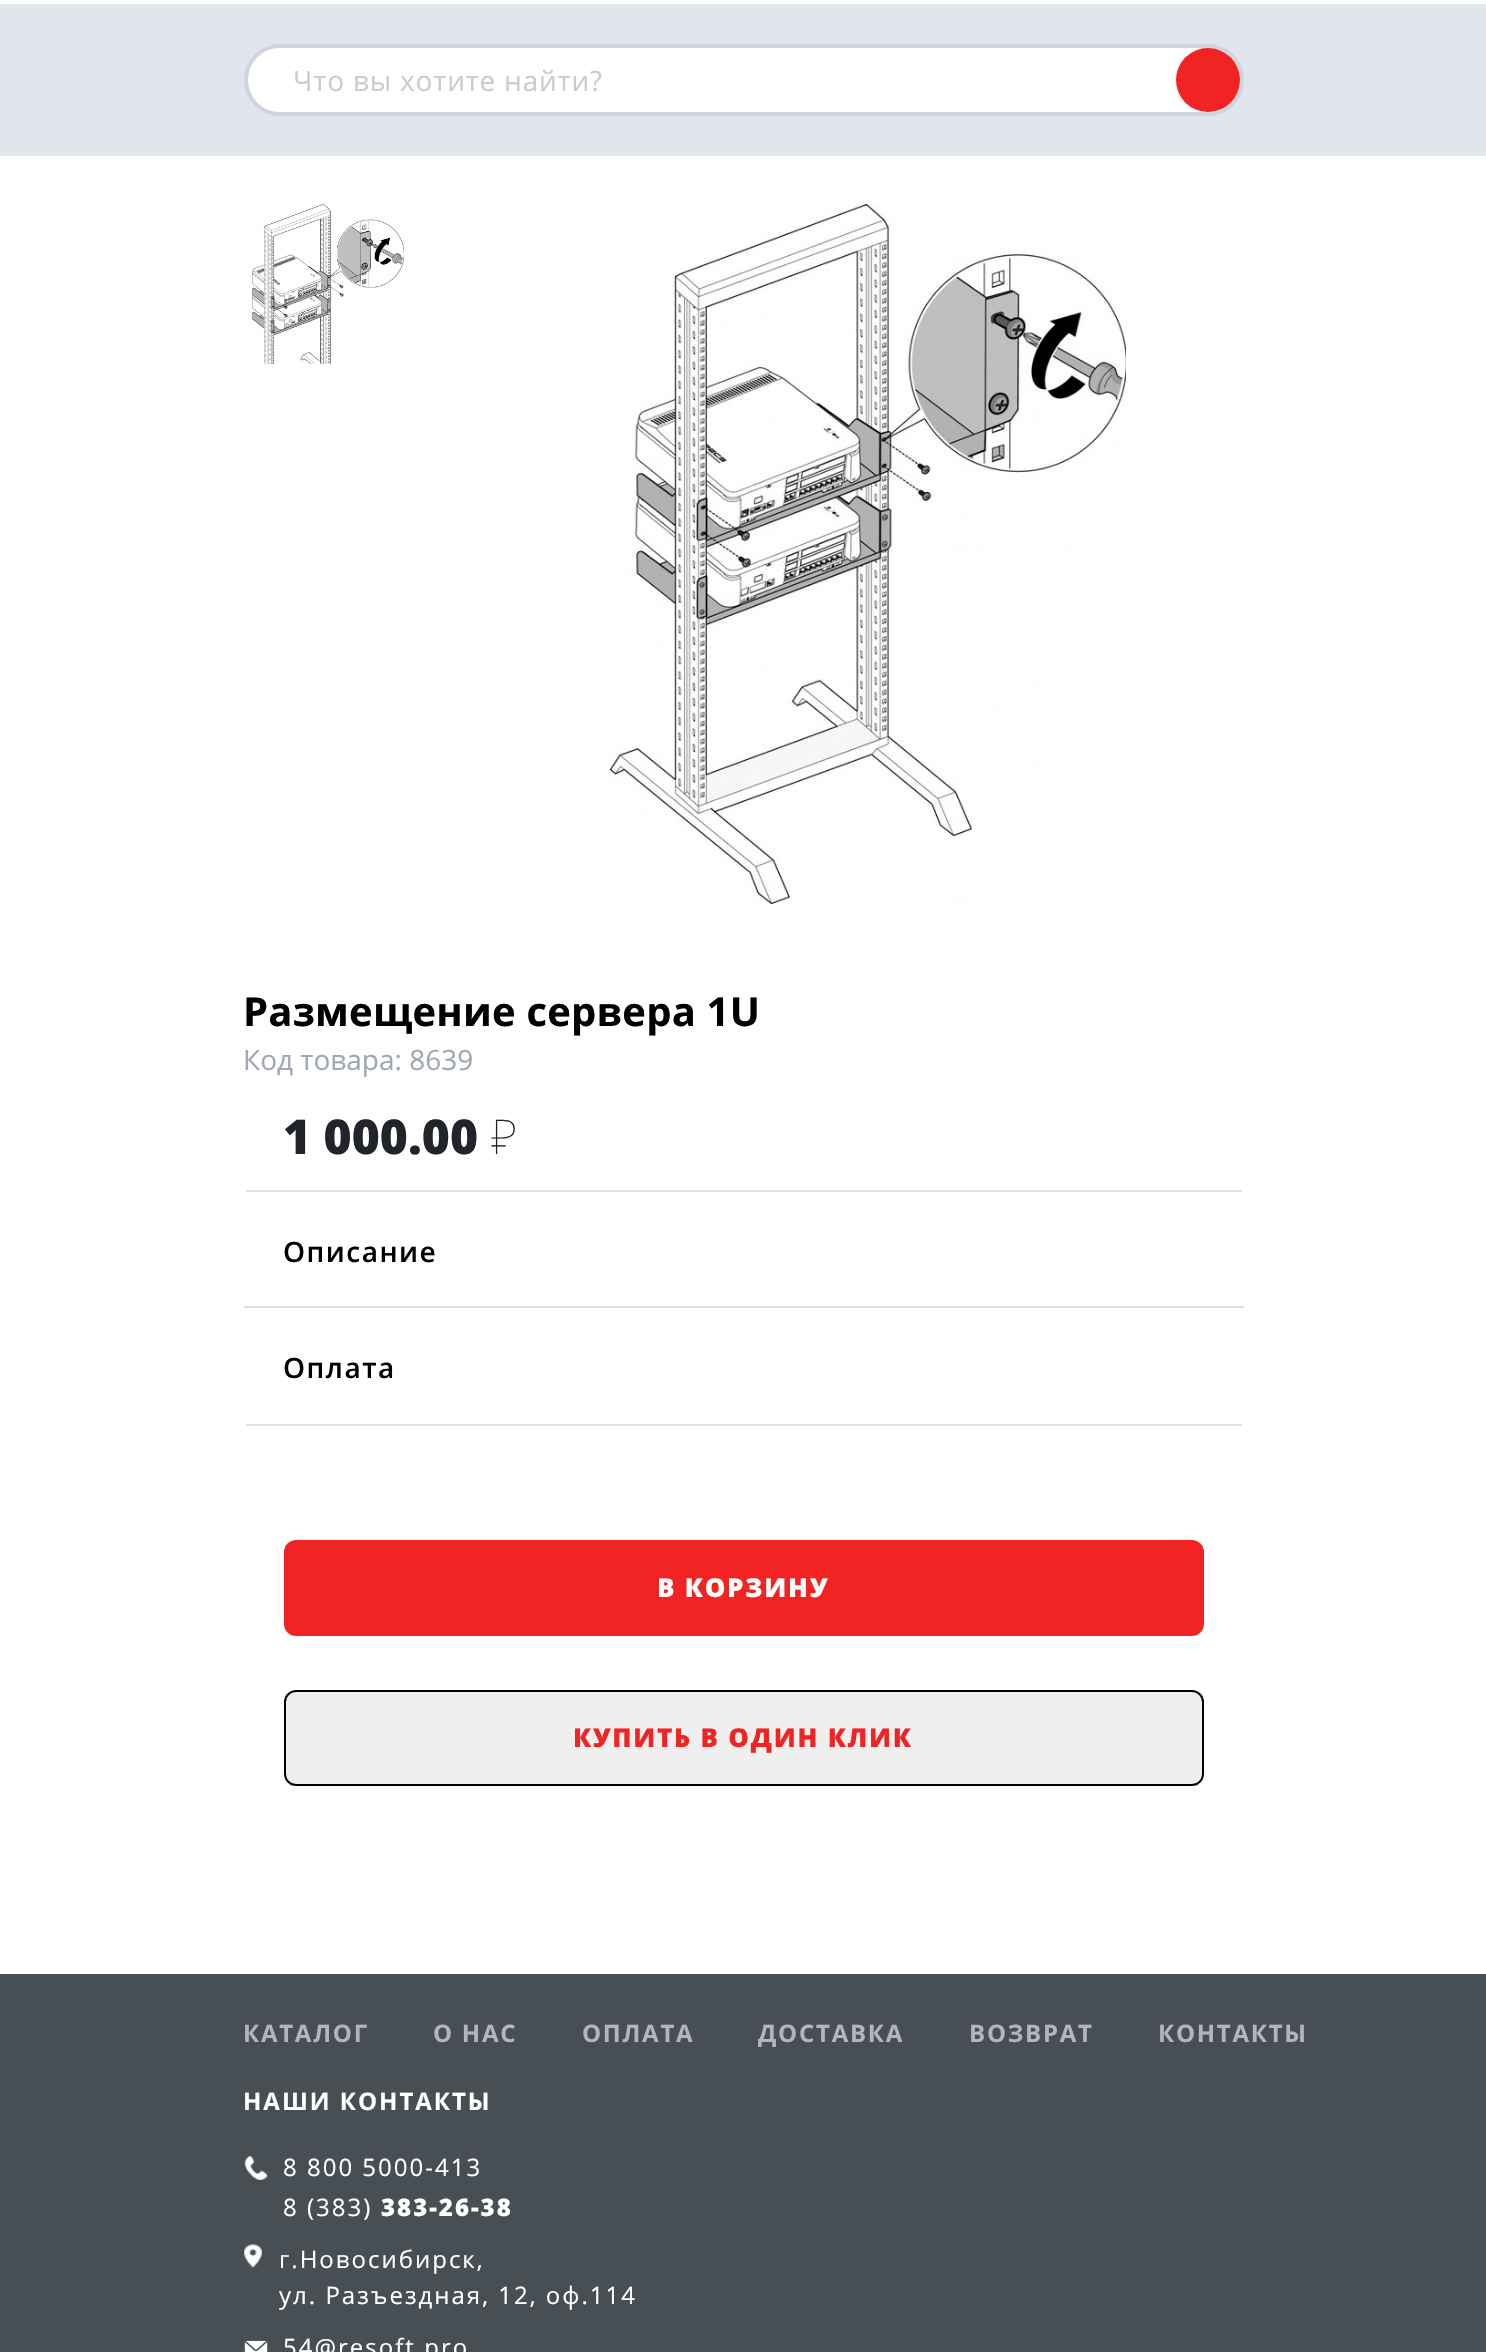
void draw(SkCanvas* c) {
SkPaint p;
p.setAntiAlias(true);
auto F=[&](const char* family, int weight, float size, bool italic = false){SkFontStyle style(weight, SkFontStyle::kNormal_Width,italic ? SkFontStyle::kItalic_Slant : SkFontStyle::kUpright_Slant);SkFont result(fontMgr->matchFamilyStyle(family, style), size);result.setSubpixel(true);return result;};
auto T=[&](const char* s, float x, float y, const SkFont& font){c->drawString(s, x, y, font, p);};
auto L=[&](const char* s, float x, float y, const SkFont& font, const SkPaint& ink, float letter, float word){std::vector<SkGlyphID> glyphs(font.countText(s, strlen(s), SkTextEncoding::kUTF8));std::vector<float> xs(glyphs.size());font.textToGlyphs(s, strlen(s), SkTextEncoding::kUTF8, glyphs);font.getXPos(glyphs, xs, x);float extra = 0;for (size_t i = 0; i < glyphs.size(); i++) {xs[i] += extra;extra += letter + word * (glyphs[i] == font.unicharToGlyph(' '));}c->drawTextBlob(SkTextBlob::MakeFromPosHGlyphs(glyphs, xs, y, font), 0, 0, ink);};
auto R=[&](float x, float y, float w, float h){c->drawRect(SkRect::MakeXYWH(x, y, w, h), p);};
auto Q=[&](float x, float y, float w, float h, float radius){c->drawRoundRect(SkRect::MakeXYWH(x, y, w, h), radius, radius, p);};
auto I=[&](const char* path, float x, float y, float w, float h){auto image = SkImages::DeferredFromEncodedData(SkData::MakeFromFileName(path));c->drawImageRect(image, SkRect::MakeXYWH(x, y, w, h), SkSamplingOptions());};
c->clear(0xffffffff);
p.setColor(0xffe1e5ec);
R(0,4,1486,152);
p.setColor(0xffffffff);
c->drawRoundRect(SkRect::MakeXYWH(246,46,996,68),34,34,p);
p.setStroke(true);
p.setStrokeWidth(4);
p.setColor(0xffcfd5de);
c->drawRoundRect(SkRect::MakeXYWH(246,46,996,68),34,34,p);
auto f1 = F("Open Sans",400,28);
p.setStroke(false);
p.setColor(0xffcccccc);
L("Что вы хотите найти?",293,91,f1,p,.8,0);
p.setColor(0xfff22323);
c->drawCircle(1208,80,32,p);
I("1.png",251,204,153,160);
I("2.png",610,204,516,700);
auto f2 = F("Open Sans",700,40);
p.setColor(0xff000000);
L("Размещение сервера 1U",243,1026,f2,p,.2,0);
p.setColor(0xffa0a8b3);
T("Код товара: 8639",243,1070,f1);
auto f3 = F("Open Sans",800,48);
p.setColor(0xff212529);
T("1 000.00",283,1154,f3);
auto f4 = F("Noto Sans",100,48);
T("₽",491,1154,f4);
p.setColor(0xffdfdfdf);
R(246,1190,996,2);
auto f5 = F("Open Sans",600,28);
p.setColor(0xff000000);
L("Описание",283,1262,f5,p,1.5,0);
p.setColor(0xffdfdfdf);
R(244,1306,1000,2);
R(246,1424,996,2);
p.setColor(0xff000000);
L("Оплата",283,1378,f5,p,1.5,0);
p.setColor(0xfff22323);
Q(284,1540,920,96,12);
auto f6 = F("Open Sans",800,26);
p.setColor(0xffffffff);
L("В КОРЗИНУ",657,1597,f6,p,1.75,0);
p.setColor(0xffefefef);
c->drawRoundRect(SkRect::MakeXYWH(285,1691,918,94),11,11,p);
p.setStroke(true);
p.setStrokeWidth(2);
p.setColor(0xff000000);
c->drawRoundRect(SkRect::MakeXYWH(285,1691,918,94),11,11,p);
p.setStroke(false);
p.setColor(0xfff22323);
L("КУПИТЬ В ОДИН КЛИК",573,1747,f6,p,1.75,0);
p.setColor(0xff474e54);
R(0,1974,1486,378);
auto f7 = F("Open Sans",700,24);
p.setColor(0xffb1b6bd);
L("КАТАЛОГ",243,2042,f7,p,1.75,0);
L("О НАС",433,2042,f7,p,1.75,0);
L("ОПЛАТА",582,2042,f7,p,1.75,0);
L("ДОСТАВКА",758,2042,f7,p,1.75,0);
L("ВОЗВРАТ",969,2042,f7,p,1.75,0);
L("КОНТАКТЫ",1158,2042,f7,p,1.75,0);
p.setColor(0xffffffff);
L("НАШИ КОНТАКТЫ",243,2110,f7,p,2,0);
I("3.png",244,2156,24,24);
auto f8 = F("Open Sans",400,24);
L("8 800 5000-413",283,2176,f8,p,2,0);
L("8 (383)",283,2216,f8,p,2,0);
auto f9 = F("Open Sans",800,24);
L("383-26-38",381,2216,f9,p,2,0);
I("4.png",244,2244,18,24);
L("г.Новосибирск,",279,2268,f8,p,2,0);
L("ул. Разъездная, 12, оф.114",279,2304,f8,p,2,0);
I("5.png",244,2340,24,12);
L("54@resoft.pro",283,2356,f8,p,2,0);
}
